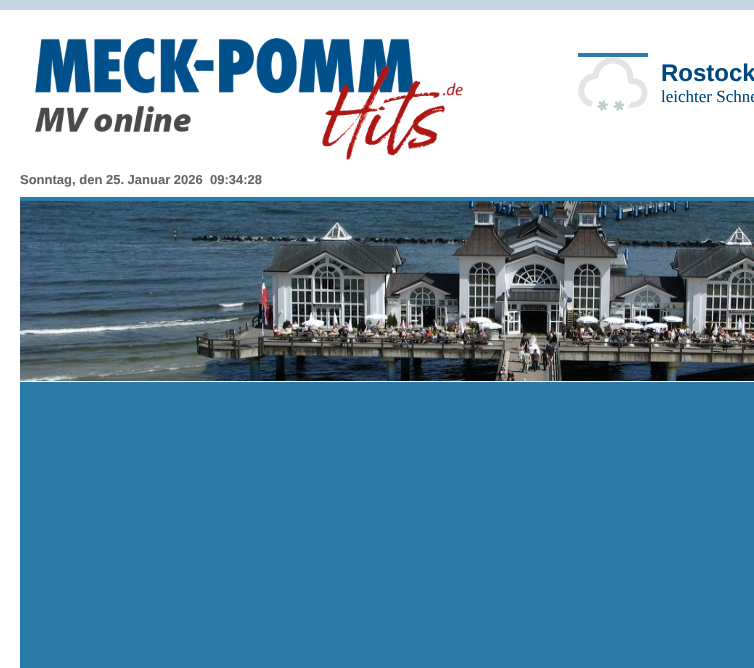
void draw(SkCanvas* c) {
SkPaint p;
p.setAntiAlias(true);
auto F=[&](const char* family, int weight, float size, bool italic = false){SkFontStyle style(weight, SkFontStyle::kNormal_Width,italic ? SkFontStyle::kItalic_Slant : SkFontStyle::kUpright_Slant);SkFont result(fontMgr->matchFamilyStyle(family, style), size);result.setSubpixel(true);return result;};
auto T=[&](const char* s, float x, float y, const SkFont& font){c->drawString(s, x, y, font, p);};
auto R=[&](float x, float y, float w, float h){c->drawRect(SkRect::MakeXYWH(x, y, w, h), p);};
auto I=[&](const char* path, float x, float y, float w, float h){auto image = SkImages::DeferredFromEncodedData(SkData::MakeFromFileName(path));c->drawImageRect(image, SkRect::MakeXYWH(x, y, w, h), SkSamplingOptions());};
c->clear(0xffc6d5e1);
p.setColor(0xffffffff);
R(0,10,754,658);
p.setColor(0xff2b7ba8);
R(578,53,70,4);
I("1.png",578,57,70,54);
auto f1 = F("Liberation Sans",700,24);
p.setColor(0xff00497f);
T("Rostock",661,81,f1);
auto f2 = F("Liberation Serif",400,17);
T("leichter Schne",661,102,f2);
I("2.png",35,38,428,122);
auto f3 = F("Liberation Sans",700,13);
p.setColor(0xff666666);
T("Sonntag, den 25. Januar 2026",20,184,f3);
T("09:34:28",210,184,f3);
p.setColor(0xff2b7ba8);
R(20,197,734,4);
I("3.png",20,201,734,180);
R(20,382,734,286);
}
